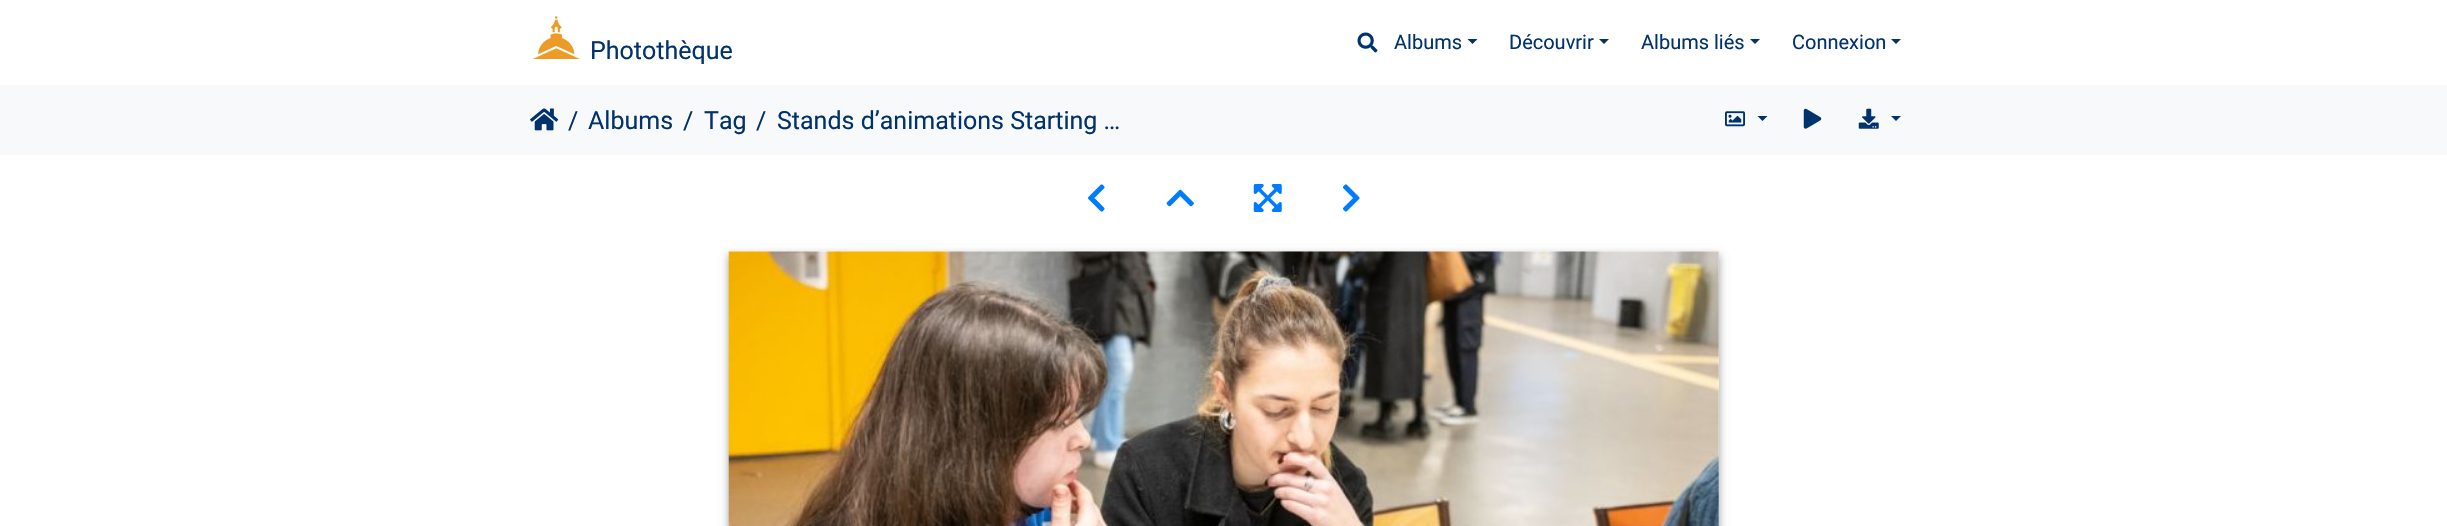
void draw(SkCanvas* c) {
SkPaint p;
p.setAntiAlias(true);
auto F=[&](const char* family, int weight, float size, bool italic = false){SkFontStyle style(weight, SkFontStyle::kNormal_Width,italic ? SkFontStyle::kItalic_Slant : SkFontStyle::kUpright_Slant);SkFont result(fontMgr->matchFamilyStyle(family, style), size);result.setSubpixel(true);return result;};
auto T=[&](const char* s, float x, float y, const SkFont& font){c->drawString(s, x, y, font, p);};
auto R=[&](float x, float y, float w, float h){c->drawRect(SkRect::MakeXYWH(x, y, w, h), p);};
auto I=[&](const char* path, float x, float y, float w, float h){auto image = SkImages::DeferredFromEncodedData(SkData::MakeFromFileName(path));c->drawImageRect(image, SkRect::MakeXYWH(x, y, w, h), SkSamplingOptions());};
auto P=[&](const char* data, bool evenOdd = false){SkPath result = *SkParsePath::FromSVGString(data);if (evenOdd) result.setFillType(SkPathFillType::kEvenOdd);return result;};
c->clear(0xffffffff);
I("1.png",532,16,48,43);
auto f1 = F("Roboto",400,25);
p.setColor(0xff00326e);
T("Photothèque",590,59,f1);
I("2.png",1357,32,21,21);
auto f2 = F("Roboto",400,20);
T("Albums",1394,49,f2);
c->drawPath(P("M1467.5 39h10l-5 5z"),p);
T("Découvrir",1509,49,f2);
c->drawPath(P("M1599 39h10l-5 5z"),p);
T("Albums liés",1641,49,f2);
c->drawPath(P("M1750 39h10l-5 5z"),p);
T("Connexion",1792,49,f2);
c->drawPath(P("M1891 39h10l-5 5z"),p);
p.setColor(0xfff8f9fa);
R(0,85,2447,70);
I("3.png",530,108,29,23);
p.setColor(0xff00326e);
T("/",568,129,f1);
T("Albums",588,129,f1);
T("/",683,129,f1);
T("Tag",704,129,f1);
T("/",756,129,f1);
T("Stands d’animations Starting …",777,129,f1);
I("4.png",1725,111,20,16);
c->drawPath(P("M1757.5 116h10l-5 5z"),p);
I("5.png",1803,108,19,21);
I("6.png",1858,108,21,21);
c->drawPath(P("M1891 116h10l-5 5z"),p);
I("7.png",1088,184,17,28);
I("8.png",1166,189,28,18);
I("9.png",1253,184,29,28);
I("10.png",1343,184,17,28);
c->save();
c->clipPath(P("M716 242h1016v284h-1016zm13 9h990v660h-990z",true),true);
p.setColor(0x3b000000);
p.setMaskFilter(SkMaskFilter::MakeBlur(kNormal_SkBlurStyle, 4));
c->drawRect(SkRect::MakeXYWH(729,255,990,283),p);
p.setMaskFilter(nullptr);
p.setColor(0x29000000);
p.setMaskFilter(SkMaskFilter::MakeBlur(kNormal_SkBlurStyle, 4));
c->drawRect(SkRect::MakeXYWH(729,255,990,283),p);
p.setMaskFilter(nullptr);
c->restore();
I("11.png",728,251,991,275);
}
